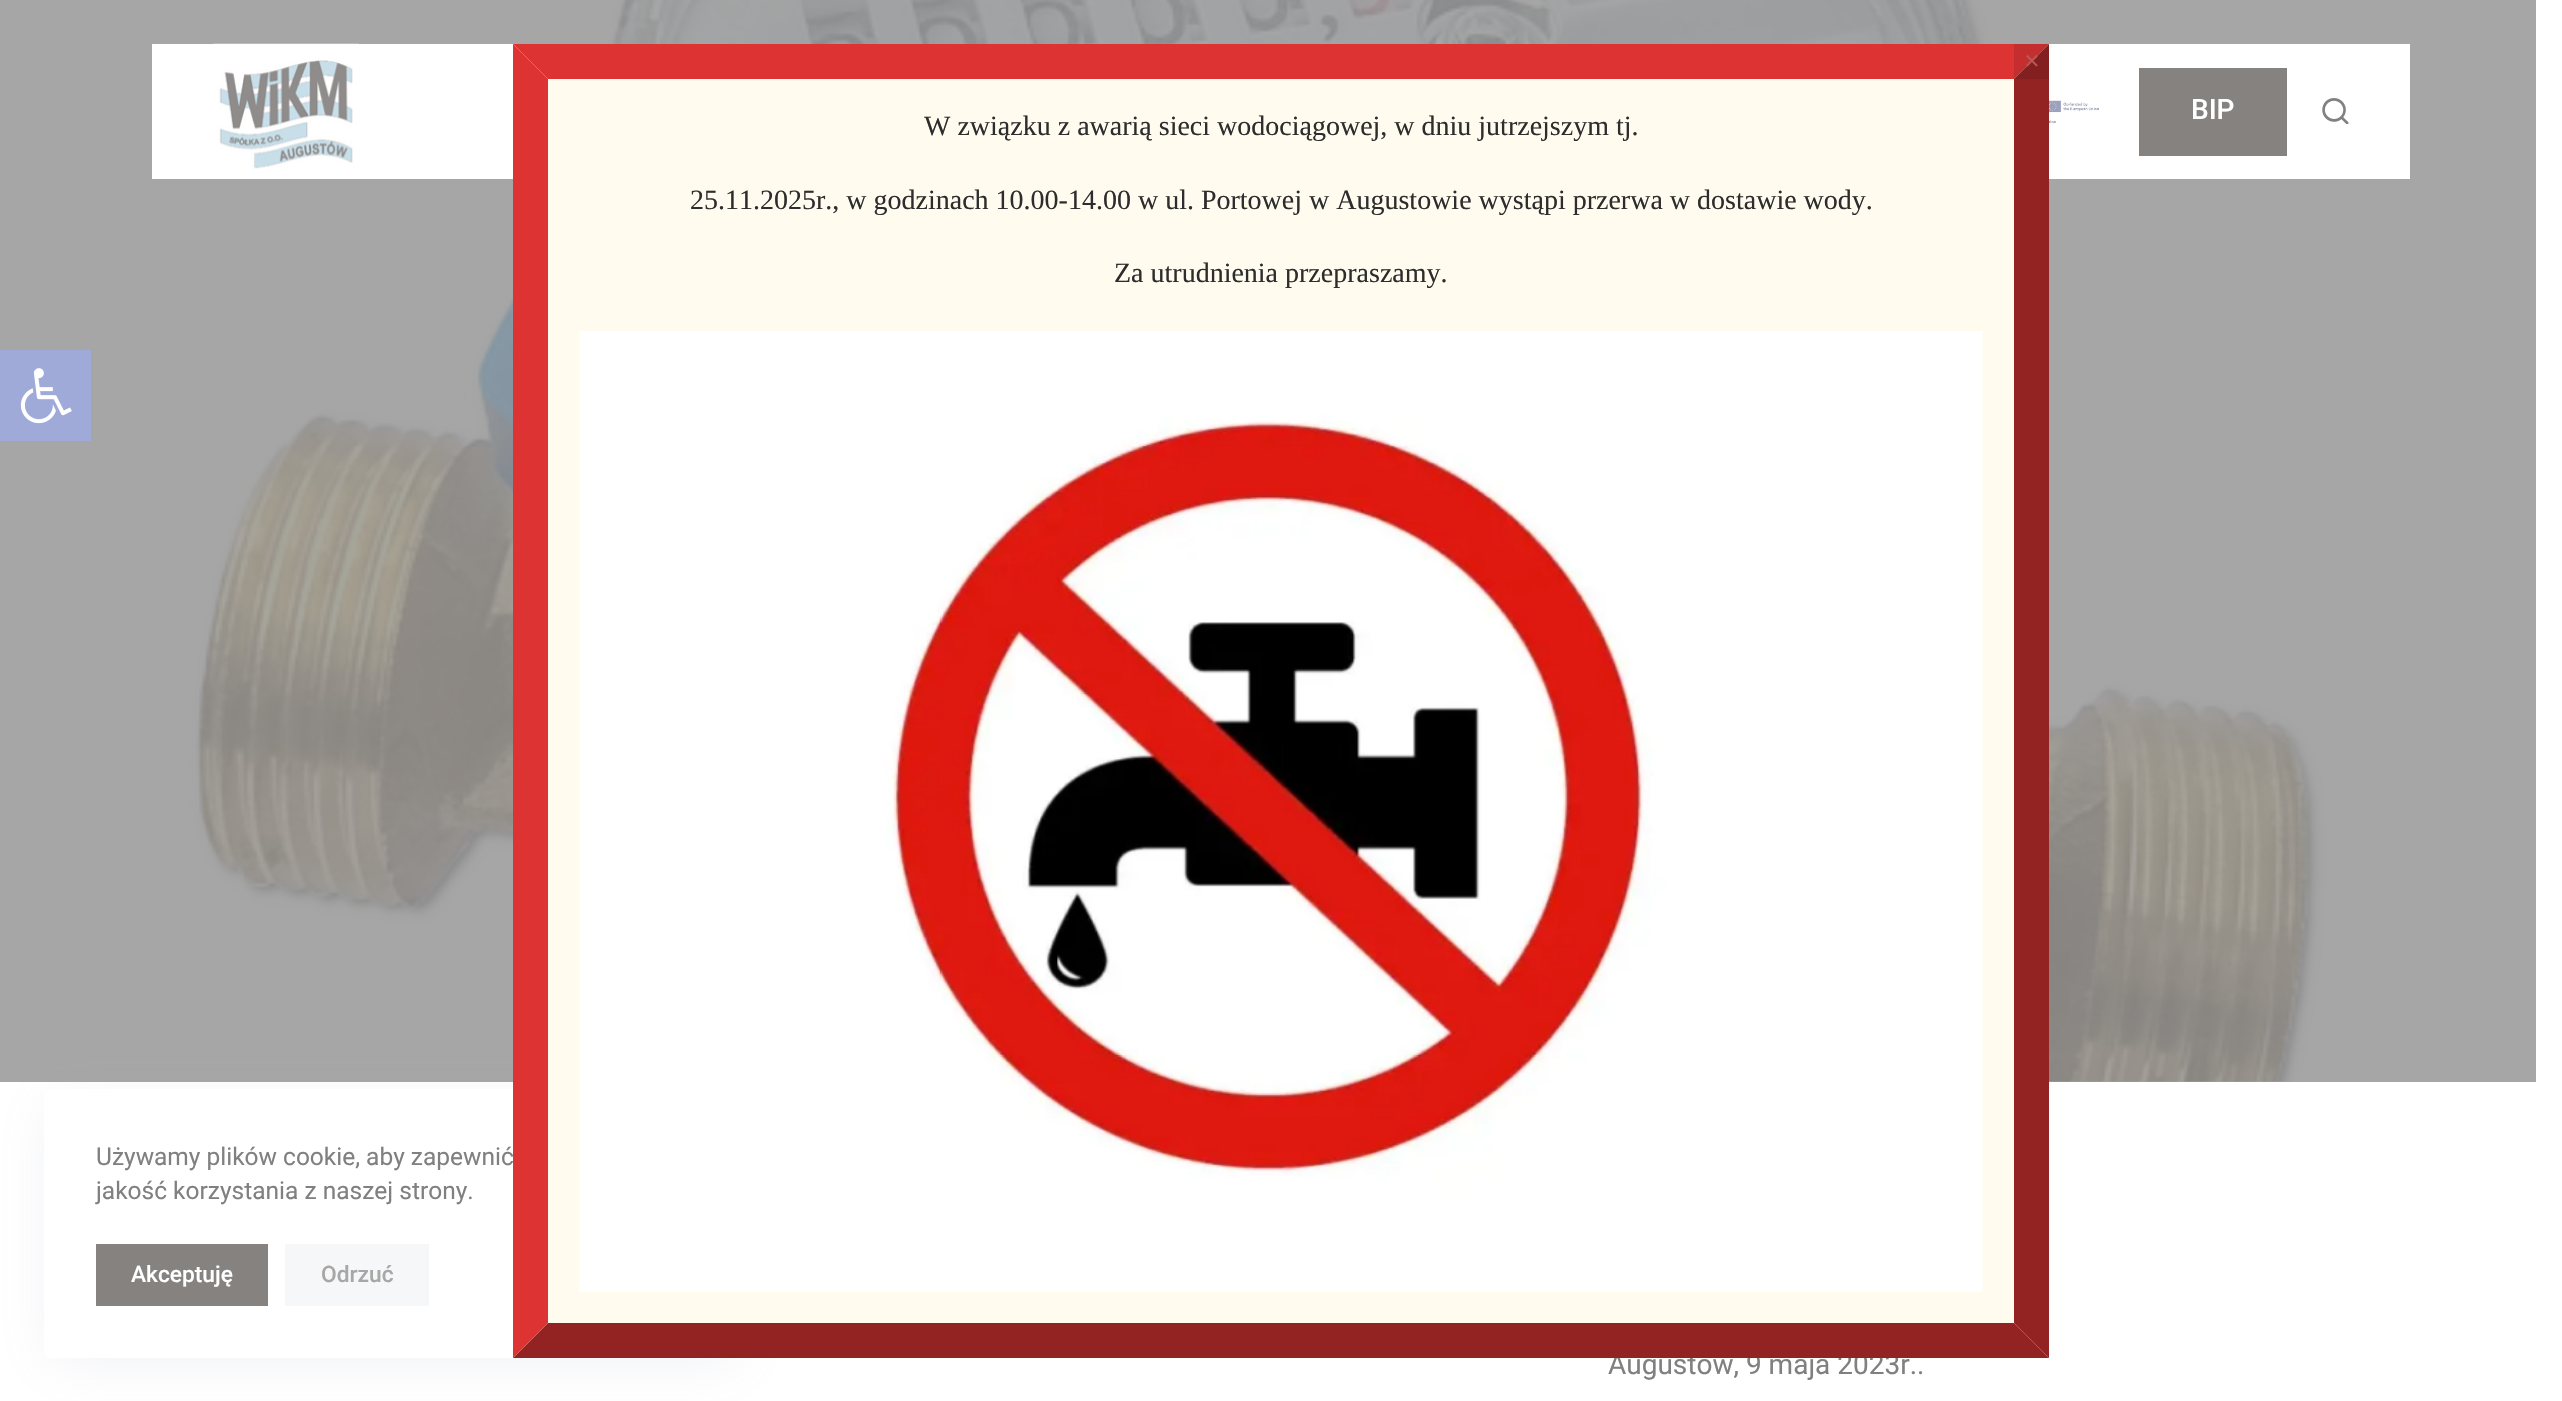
void draw(SkCanvas* c) {
SkPaint p;
p.setAntiAlias(true);
auto F=[&](const char* family, int weight, float size, bool italic = false){SkFontStyle style(weight, SkFontStyle::kNormal_Width,italic ? SkFontStyle::kItalic_Slant : SkFontStyle::kUpright_Slant);SkFont result(fontMgr->matchFamilyStyle(family, style), size);result.setSubpixel(true);return result;};
auto T=[&](const char* s, float x, float y, const SkFont& font){c->drawString(s, x, y, font, p);};
auto R=[&](float x, float y, float w, float h){c->drawRect(SkRect::MakeXYWH(x, y, w, h), p);};
auto Q=[&](float x, float y, float w, float h, float radius){c->drawRoundRect(SkRect::MakeXYWH(x, y, w, h), radius, radius, p);};
auto I=[&](const char* path, float x, float y, float w, float h){auto image = SkImages::DeferredFromEncodedData(SkData::MakeFromFileName(path));c->drawImageRect(image, SkRect::MakeXYWH(x, y, w, h), SkSamplingOptions());};
auto P=[&](const char* data, bool evenOdd = false){SkPath result = *SkParsePath::FromSVGString(data);if (evenOdd) result.setFillType(SkPathFillType::kEvenOdd);return result;};
c->clear(0xffffffff);
p.setColor(0xffa5a5a5);
R(0,0,2536,1082);
I("6.png",0,0,2535,1082);
p.setColor(0xffffffff);
R(152,44,2258,135);
auto f1 = F("Roboto",400,28);
p.setColor(0xff808080);
T("Augustów, 9 maja 2023r..",1608,1374,f1);
p.setColor(0x26919cb2);
p.setMaskFilter(SkMaskFilter::MakeBlur(kNormal_SkBlurStyle, 26));
c->drawRect(SkRect::MakeXYWH(53,1106,682,252),p);
p.setMaskFilter(nullptr);
p.setColor(0xffffffff);
Q(44,1089,700,269,5);
auto f2 = F("Roboto",400,24.5);
p.setColor(0xff808080);
T("Używamy plików cookie, aby zapewnić",96,1165,f2);
p.setColor(0xfffffbef);
R(513,44,1536,1314);
p.setColor(0xffdd3333);
c->drawPath(P("M513 44h1536l-35 35h-1466z"),p);
p.setColor(0xff932222);
c->drawPath(P("M2049 44v1314l-35-35v-1244z"),p);
c->drawPath(P("M2049 1358h-1536l35-35h1466z"),p);
p.setColor(0xffdd3333);
c->drawPath(P("M513 1358v-1314l35 35v1244z"),p);
p.setColor(0x1c000000);
R(2014,44,35,35);
auto f3 = F("Liberation Serif",700,28);
p.setColor(0xffba5656);
T("×",2024,70,f3);
auto f4 = F("Liberation Serif",400,28);
p.setColor(0xff2d2d2d);
T("W związku z awarią sieci wodociągowej, w dniu jutrzejszym tj.",924,135,f4);
T("25.11.2025r., w godzinach 10.00-14.00 w ul. Portowej w Augustowie wystąpi przerwa w dostawie wody.",690,209,f4);
T("Za utrudnienia przepraszamy.",1114,282,f4);
I("1.png",579,331,1404,961);
p.setColor(0xffa0aad9);
R(0,350,91,91);
I("2.png",20,368,52,56);
I("3.png",213,43,146,126);
I("4.png",2049,100,50,24);
p.setColor(0xff858280);
R(2139,68,148,88);
auto f5 = F("Roboto",500,28);
p.setColor(0xffffffff);
T("BIP",2191,119,f5);
I("5.png",2322,98,27,26);
p.setColor(0xff808080);
T("jakość korzystania z naszej strony.",96,1199,f2);
p.setColor(0xff858280);
R(96,1244,172,62);
auto f6 = F("Roboto",500,22.75);
p.setColor(0xffffffff);
T("Akceptuję",131,1282,f6);
p.setColor(0xfff6f7f9);
R(285,1244,144,62);
p.setColor(0xffa8a7a5);
T("Odrzuć",321,1282,f6);
}
